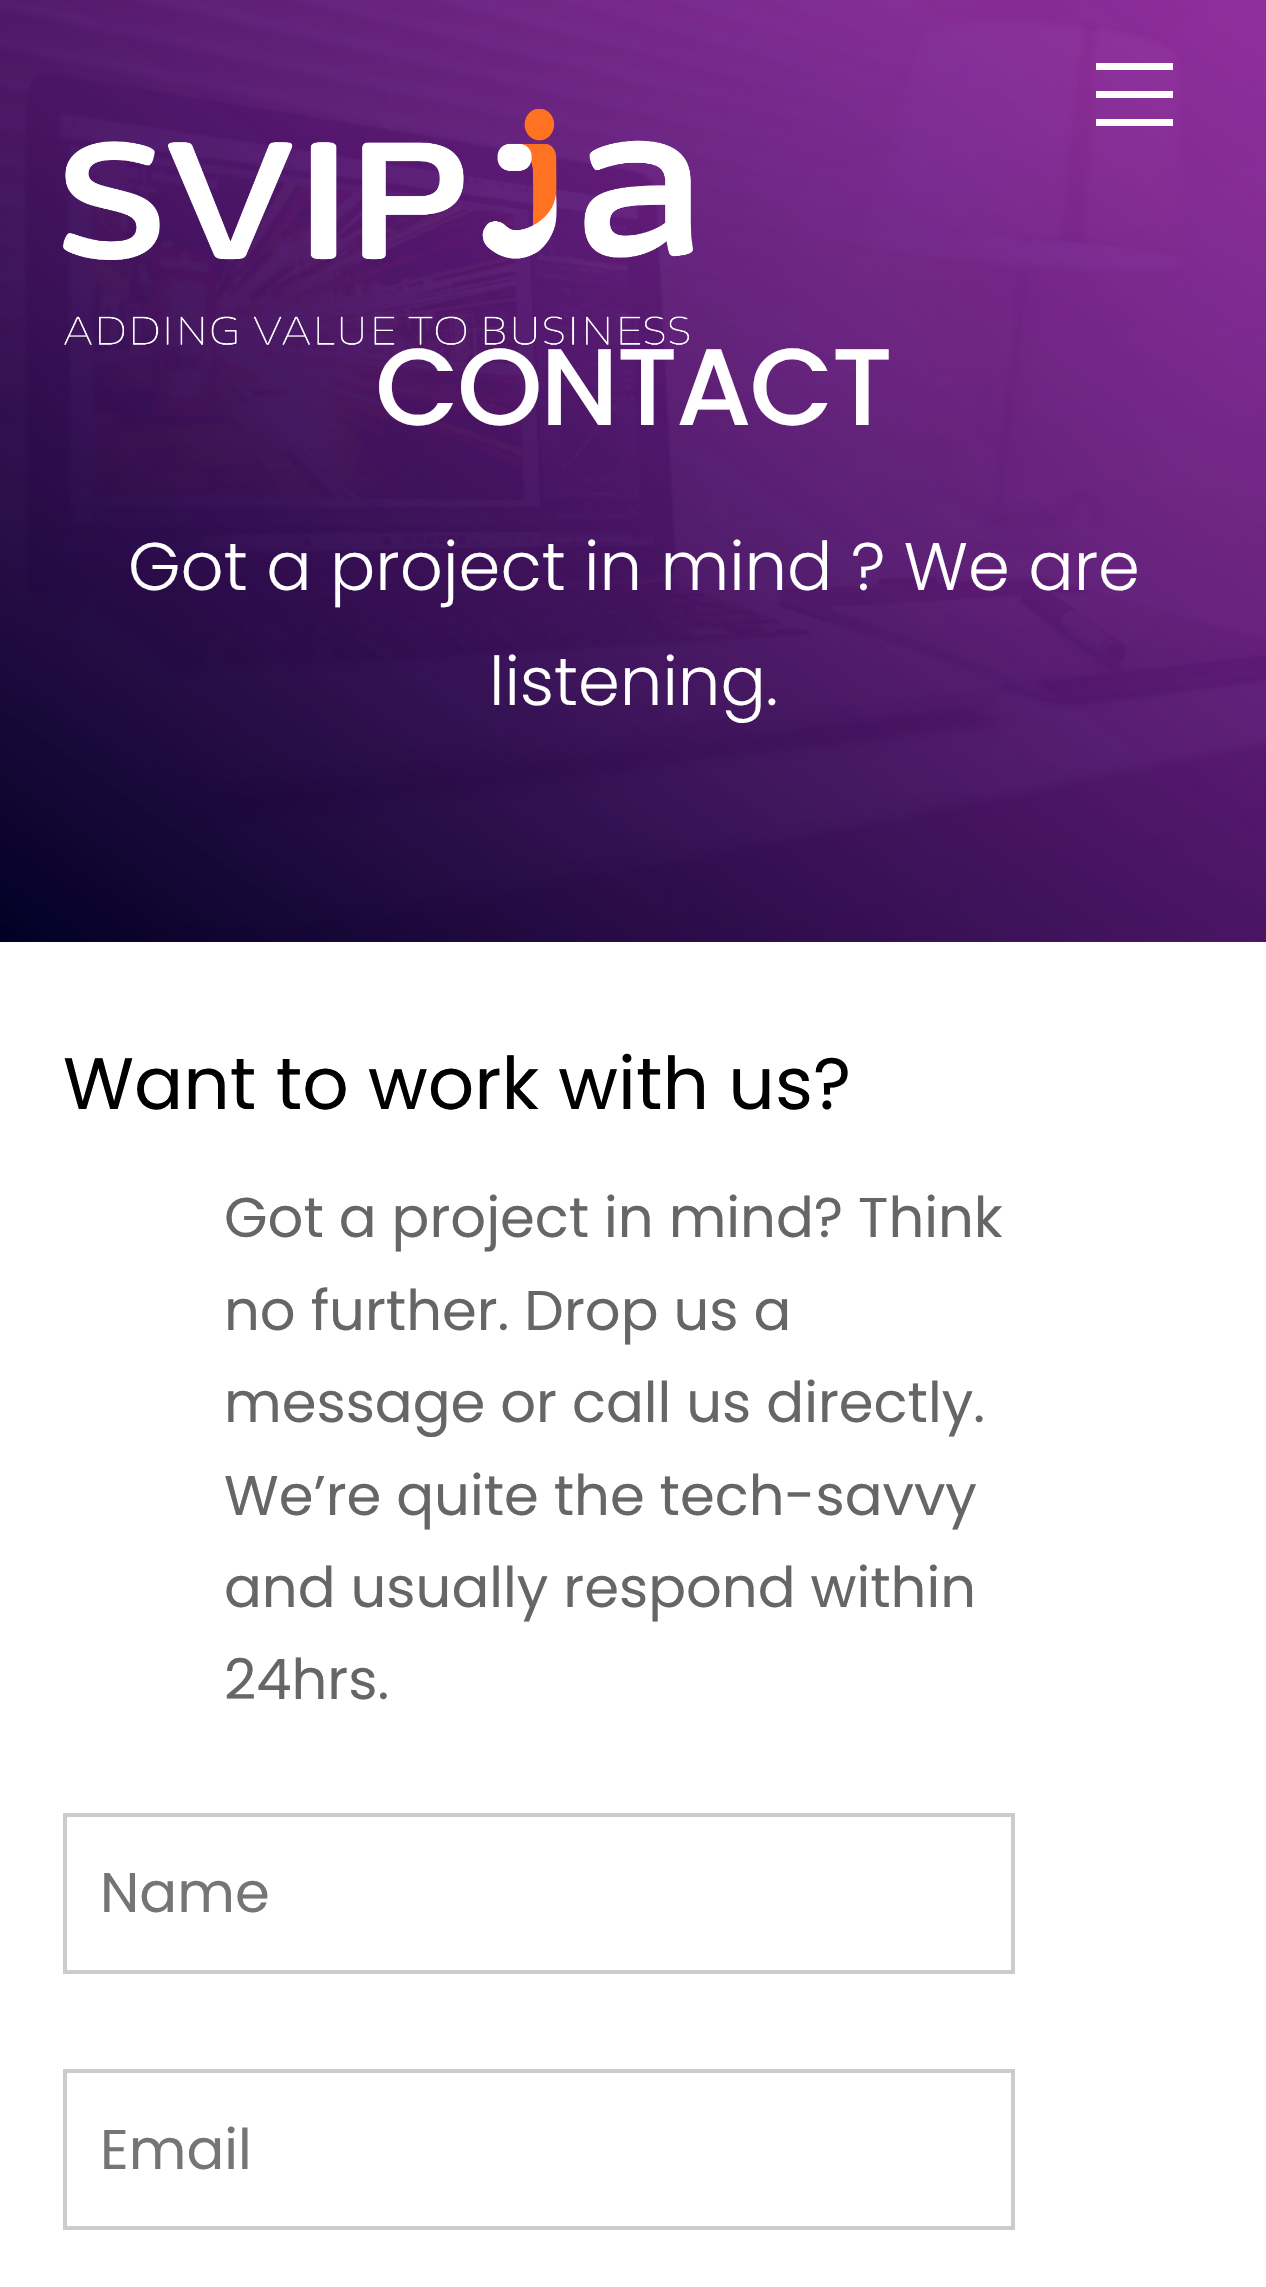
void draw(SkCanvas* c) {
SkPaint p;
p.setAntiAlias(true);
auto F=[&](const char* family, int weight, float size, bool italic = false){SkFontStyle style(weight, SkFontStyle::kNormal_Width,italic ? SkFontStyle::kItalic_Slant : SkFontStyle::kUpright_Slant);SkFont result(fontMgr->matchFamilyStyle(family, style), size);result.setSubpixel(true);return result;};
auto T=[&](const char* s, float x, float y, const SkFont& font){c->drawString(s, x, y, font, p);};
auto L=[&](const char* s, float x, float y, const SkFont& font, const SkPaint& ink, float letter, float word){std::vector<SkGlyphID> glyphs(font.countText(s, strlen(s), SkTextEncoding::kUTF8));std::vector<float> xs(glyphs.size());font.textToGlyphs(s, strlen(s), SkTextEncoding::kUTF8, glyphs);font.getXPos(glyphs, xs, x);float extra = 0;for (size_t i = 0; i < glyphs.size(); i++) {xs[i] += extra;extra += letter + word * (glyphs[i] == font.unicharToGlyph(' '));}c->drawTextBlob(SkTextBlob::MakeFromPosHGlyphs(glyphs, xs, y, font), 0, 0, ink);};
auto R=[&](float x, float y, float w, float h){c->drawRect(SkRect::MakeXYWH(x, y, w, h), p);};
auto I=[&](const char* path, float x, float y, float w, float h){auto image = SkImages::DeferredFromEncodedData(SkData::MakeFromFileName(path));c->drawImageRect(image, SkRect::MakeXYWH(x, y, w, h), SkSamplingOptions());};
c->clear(0xffffffff);
p.setColor(0xff666666);
R(77,941,1189,1);
I("2.png",0,0,1266,942);
{
const SkColor colors[] = {0xff010024,0xcca22bba};
const float stops[] = {0,1};
const SkPoint ends[] = {{204,1084}, {1063,-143}};
p.setShader(SkGradientShader::MakeLinear(ends, colors, stops, 2, SkTileMode::kClamp));
p.setAlpha(255);
}
R(0,0,1266,942);
p.setShader(nullptr);
p.setColor(0xffffffff);
R(1096,119,77,7);
R(1096,63,77,7);
R(1096,91,77,7);
I("1.png",63,109,630,236);
auto f1 = F("Poppins",500,109);
L("CONTACT",375,425,f1,p,-2.25,0);
auto f2 = F("Poppins",300,67.25);
T("Got a project in mind ? We are",128,590,f2);
T("listening.",489,705,f2);
auto f3 = F("Poppins",400,72.75);
p.setColor(0xff000000);
T("Want to work with us?",63,1109,f3);
auto f4 = F("Poppins",400,56);
p.setColor(0xff666666);
T("Got a project in mind? Think",224,1237,f4);
T("no further. Drop us a",224,1330,f4);
T("message or call us directly.",224,1422,f4);
T("We’re quite the tech-savvy",224,1515,f4);
T("and usually respond within",224,1607,f4);
T("24hrs.",224,1699,f4);
p.setStroke(true);
p.setStrokeWidth(4);
p.setColor(0xffcccccc);
c->drawRect(SkRect::MakeXYWH(65,1815,948,157),p);
p.setStroke(false);
p.setColor(0xff757575);
T("Name",100,1912,f4);
p.setStroke(true);
p.setColor(0xffcccccc);
c->drawRect(SkRect::MakeXYWH(65,2071,948,157),p);
p.setStroke(false);
p.setColor(0xff757575);
T("Email",100,2169,f4);
}
